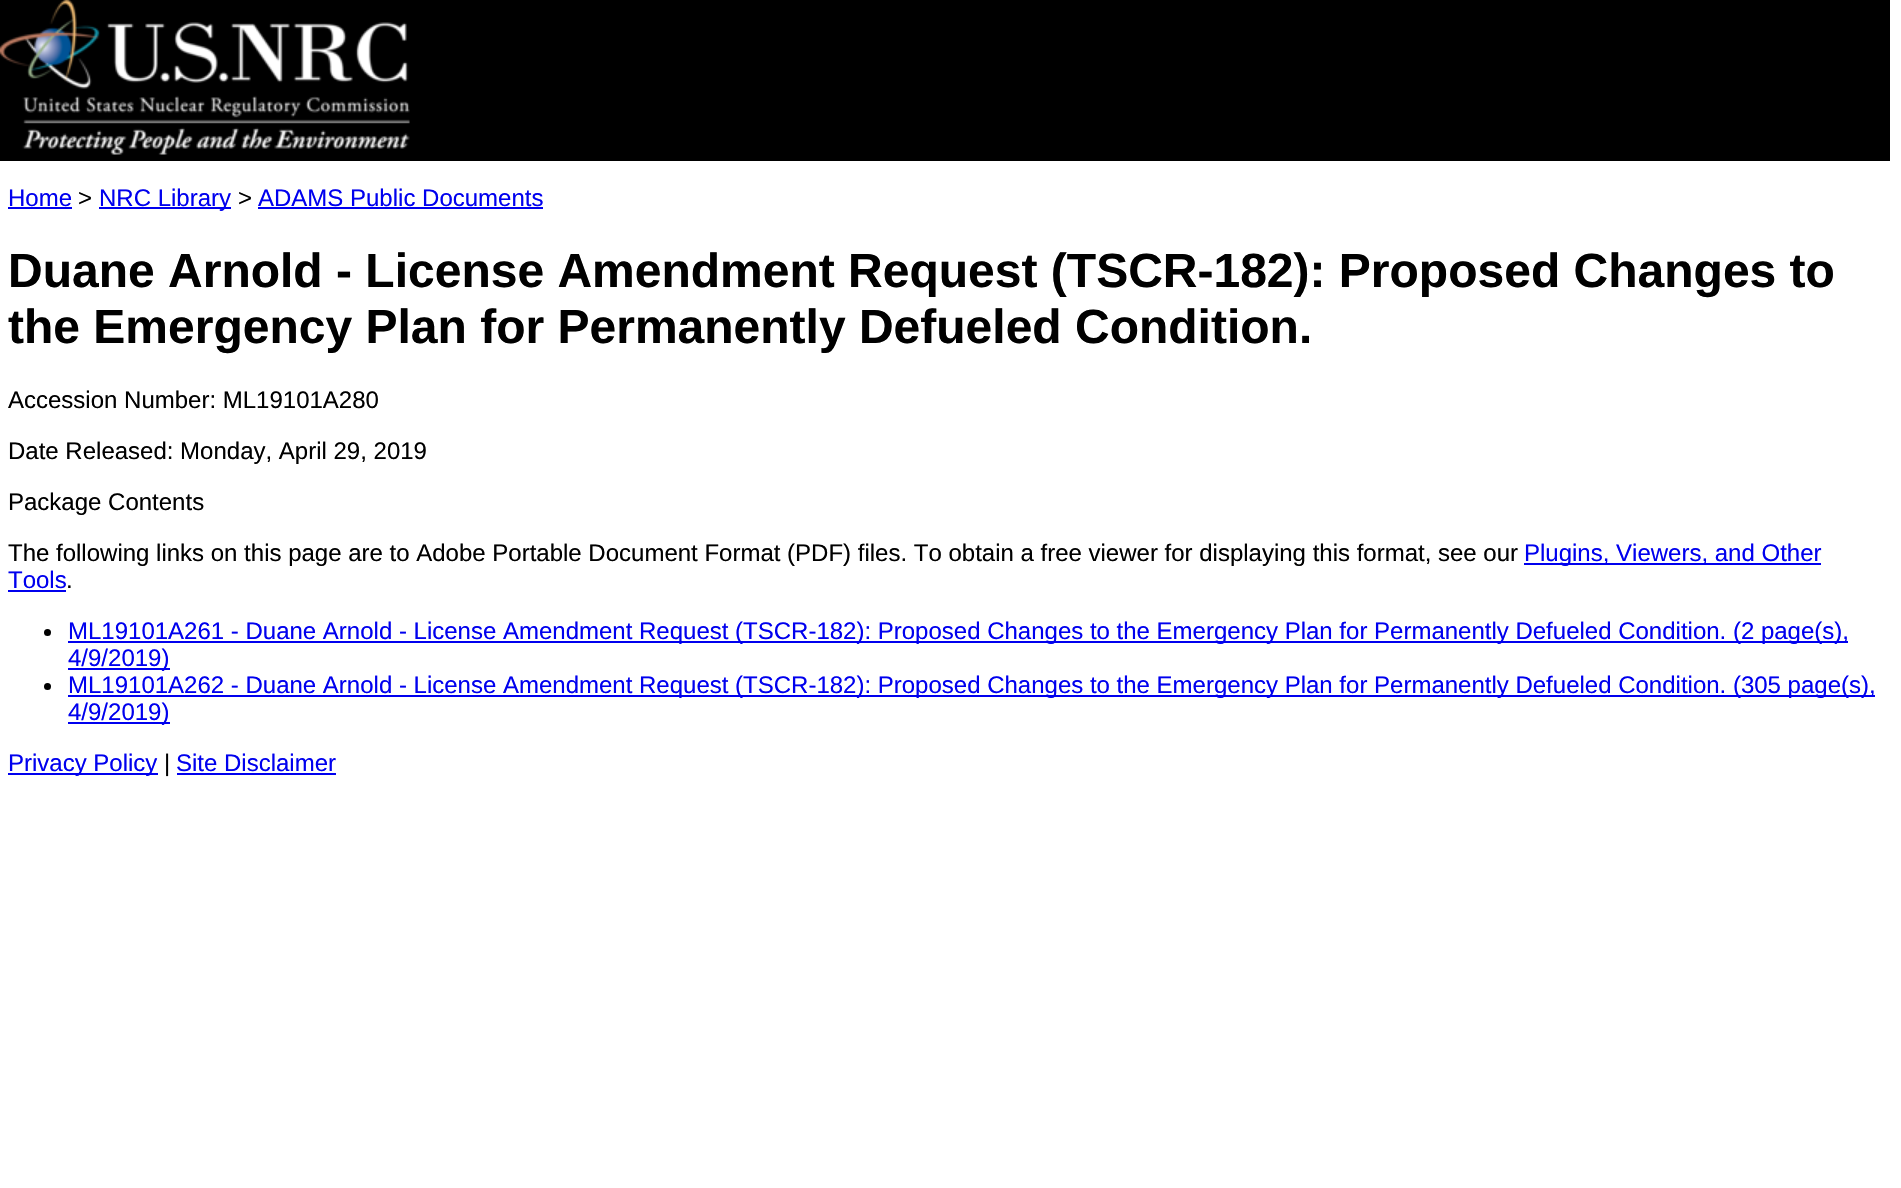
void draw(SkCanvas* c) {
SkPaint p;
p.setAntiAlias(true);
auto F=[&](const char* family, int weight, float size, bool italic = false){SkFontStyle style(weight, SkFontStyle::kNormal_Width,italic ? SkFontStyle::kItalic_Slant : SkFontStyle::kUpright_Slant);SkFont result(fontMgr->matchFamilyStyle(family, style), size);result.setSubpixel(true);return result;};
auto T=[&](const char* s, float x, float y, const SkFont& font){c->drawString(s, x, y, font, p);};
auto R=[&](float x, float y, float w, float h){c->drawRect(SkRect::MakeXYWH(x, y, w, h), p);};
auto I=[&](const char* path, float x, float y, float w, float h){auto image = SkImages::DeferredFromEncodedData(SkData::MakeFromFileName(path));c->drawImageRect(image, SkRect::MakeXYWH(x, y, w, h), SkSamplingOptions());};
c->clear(0xffffffff);
p.setColor(0xff000000);
R(0,0,1890,161);
I("1.png",0,0,410,155);
auto f1 = F("Liberation Sans",400,24);
p.setColor(0xff0000ee);
T("Home",8,206,f1);
R(8,207,64,2);
p.setColor(0xff000000);
T(">",78,206,f1);
p.setColor(0xff0000ee);
R(99,207,132,2);
T("NRC Library",99,206,f1);
p.setColor(0xff000000);
T(">",238,206,f1);
p.setColor(0xff0000ee);
T("ADAMS Public Documents",258,206,f1);
R(258,207,285,2);
auto f2 = F("Liberation Sans",700,48);
p.setColor(0xff000000);
T("Duane Arnold - License Amendment Request (TSCR-182): Proposed Changes to",8,287,f2);
T("the Emergency Plan for Permanently Defueled Condition.",8,343,f2);
T("Accession Number: ML19101A280",8,408,f1);
T("Date Released: Monday, April 29, 2019",8,459,f1);
T("Package Contents",8,510,f1);
T("The following links on this page are to Adobe Portable Document Format (PDF) files. To obtain a free viewer for displaying this format, see our",8,561,f1);
p.setColor(0xff0000ee);
R(1524,563,297,2);
T("Plugins, Viewers, and Other",1524,561,f1);
T("Tools",8,588,f1);
R(8,590,58,2);
p.setColor(0xff000000);
T(".",66,588,f1);
c->drawCircle(47.5,632.5,3.5,p);
p.setColor(0xff0000ee);
R(68,641,1780,2);
T("ML19101A261 - Duane Arnold - License Amendment Request (TSCR-182): Proposed Changes to the Emergency Plan for Permanently Defueled Condition. (2 page(s),",68,639,f1);
R(68,668,102,2);
T("4/9/2019)",68,666,f1);
p.setColor(0xff000000);
c->drawCircle(47.5,686.5,3.5,p);
p.setColor(0xff0000ee);
R(68,695,1807,2);
T("ML19101A262 - Duane Arnold - License Amendment Request (TSCR-182): Proposed Changes to the Emergency Plan for Permanently Defueled Condition. (305 page(s),",68,693,f1);
R(68,722,102,2);
T("4/9/2019)",68,720,f1);
R(8,773,150,2);
T("Privacy Policy",8,771,f1);
p.setColor(0xff000000);
T("|",164,771,f1);
p.setColor(0xff0000ee);
T("Site Disclaimer",176,771,f1);
R(177,773,159,2);
}
